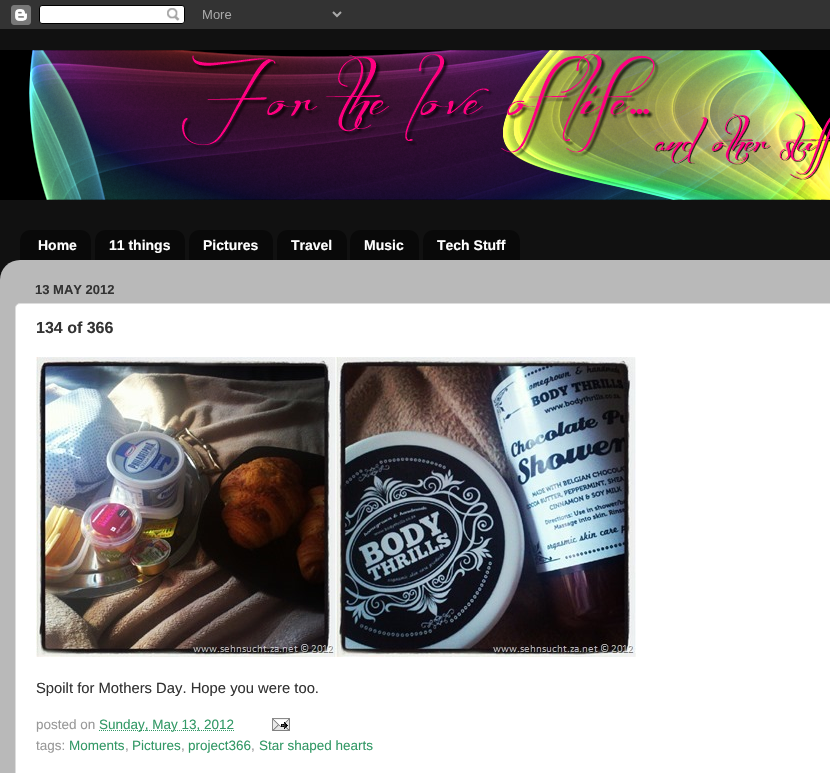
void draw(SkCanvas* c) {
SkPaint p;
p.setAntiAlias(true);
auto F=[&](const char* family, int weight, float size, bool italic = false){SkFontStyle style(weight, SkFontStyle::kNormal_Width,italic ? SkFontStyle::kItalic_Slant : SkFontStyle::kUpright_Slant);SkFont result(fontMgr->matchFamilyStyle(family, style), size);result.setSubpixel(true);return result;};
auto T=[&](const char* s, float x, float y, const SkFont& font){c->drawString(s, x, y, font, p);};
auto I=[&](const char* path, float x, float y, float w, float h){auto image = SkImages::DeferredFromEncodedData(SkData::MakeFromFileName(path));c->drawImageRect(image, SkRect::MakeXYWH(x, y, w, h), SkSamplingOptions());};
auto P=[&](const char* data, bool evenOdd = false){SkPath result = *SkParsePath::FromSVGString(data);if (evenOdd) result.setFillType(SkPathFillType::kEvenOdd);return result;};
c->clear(0xff111111);
I("1.png",0,0,830,29);
I("2.png",0,50,830,150);
I("3.png",20,230,71,30);
auto f1 = F("Liberation Sans",700,14);
p.setColor(0xffffffff);
T("Home",38,250,f1);
I("4.png",95,230,90,30);
T("11 things",109,250,f1);
I("5.png",189,230,84,30);
T("Pictures",203,250,f1);
I("6.png",277,230,70,30);
T("Travel",291,250,f1);
I("7.png",350,230,69,30);
T("Music",364,250,f1);
I("8.png",423,230,97,30);
T("Tech Stuff",437,250,f1);
I("9.png",0,260,830,513);
auto f2 = F("Liberation Sans",700,13);
p.setColor(0xff333333);
T("13 MAY 2012",35,294,f2);
p.setColor(0xffffffff);
c->drawRoundRect(SkRect::MakeXYWH(15.5,303.5,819,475),4.5,4.5,p);
p.setStroke(true);
p.setStrokeWidth(1);
p.setColor(0xffdddddd);
c->drawRoundRect(SkRect::MakeXYWH(15.5,303.5,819,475),4.5,4.5,p);
auto f3 = F("Liberation Sans",700,16);
p.setStroke(false);
p.setColor(0xff333333);
T("134 of 366",36,333,f3);
I("10.png",36,357,300,300);
I("11.png",336,357,300,300);
auto f4 = F("Liberation Sans",400,14.8);
T("Spoilt for Mothers Day. Hope you were too.",36,693,f4);
auto f5 = F("Liberation Sans",400,13.5);
p.setColor(0xff999999);
T("posted on",36,729,f5);
p.setStroke(true);
p.setColor(0xff339966);
p.setPathEffect(SkDashPathEffect::Make({{1,1}}, 0));
c->drawPath(P("M99 730.5h135"),p);
p.setPathEffect(nullptr);
p.setStroke(false);
T("Sunday, May 13, 2012",99,729,f5);
I("12.png",272,718,18,13);
p.setColor(0xff999999);
T("tags:",36,750,f5);
p.setColor(0xff339966);
T("Moments",69,750,f5);
p.setColor(0xff999999);
T(",",125,750,f5);
p.setColor(0xff339966);
T("Pictures",132,750,f5);
p.setColor(0xff999999);
T(",",181,750,f5);
p.setColor(0xff339966);
T("project366",188,750,f5);
p.setColor(0xff999999);
T(",",251,750,f5);
p.setColor(0xff339966);
T("Star shaped hearts",259,750,f5);
}
